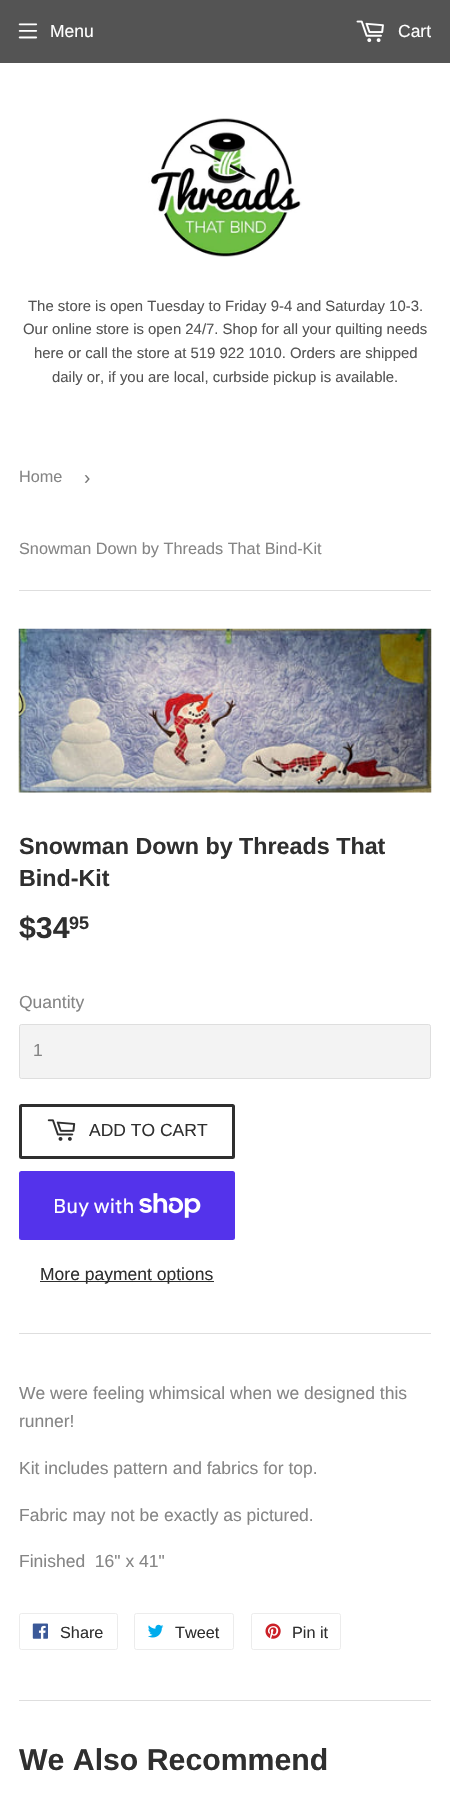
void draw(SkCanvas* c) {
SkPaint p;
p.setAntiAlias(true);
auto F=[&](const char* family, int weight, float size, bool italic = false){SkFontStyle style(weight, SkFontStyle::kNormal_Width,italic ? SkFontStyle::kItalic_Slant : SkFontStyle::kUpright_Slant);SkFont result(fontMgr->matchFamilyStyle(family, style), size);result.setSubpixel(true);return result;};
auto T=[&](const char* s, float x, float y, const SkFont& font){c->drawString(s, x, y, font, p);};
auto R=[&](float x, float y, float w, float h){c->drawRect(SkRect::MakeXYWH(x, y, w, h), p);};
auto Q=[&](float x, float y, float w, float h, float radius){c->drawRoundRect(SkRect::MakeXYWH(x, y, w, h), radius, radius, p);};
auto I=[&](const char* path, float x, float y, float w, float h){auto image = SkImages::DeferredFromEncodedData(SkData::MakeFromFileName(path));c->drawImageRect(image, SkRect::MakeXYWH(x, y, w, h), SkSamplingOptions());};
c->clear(0xffffffff);
p.setColor(0xff545454);
R(0,0,450,63);
I("1.png",18,23,20,16);
auto f1 = F("Liberation Sans",400,17.5);
p.setColor(0xffffffff);
T("Menu",50,37,f1);
I("2.png",356,20,28,23);
T("Cart",398,37,f1);
I("3.png",148,118,154,139);
auto f2 = F("Liberation Sans",400,14.9);
p.setColor(0xff545454);
T("The store is open Tuesday to Friday 9-4 and Saturday 10-3.",28,311,f2);
T("Our online store is open 24/7. Shop for all your quilting needs",23,334,f2);
T("here or call the store at 519 922 1010. Orders are shipped",34,358,f2);
T("daily or, if you are local, curbside pickup is available.",52,382,f2);
p.setColor(0xffdedede);
R(19,590,412,1);
auto f3 = F("Liberation Sans",400,16.25);
p.setColor(0xff858585);
T("Home",19,482,f3);
auto f4 = F("Liberation Sans",400,19);
p.setColor(0xff767676);
T("›",84,484,f4);
p.setColor(0xff858585);
T("Snowman Down by Threads That Bind-Kit",19,554,f3);
I("4.png",18,628,414,165);
auto f5 = F("Liberation Sans",700,23.3);
p.setColor(0xff2f2f2f);
T("Snowman Down by Threads That",19,854,f5);
T("Bind-Kit",19,886,f5);
auto f6 = F("Liberation Sans",700,30.25);
T("$34",19,938,f6);
auto f7 = F("Liberation Sans",700,18);
T("95",69,929,f7);
p.setColor(0xff858585);
T("Quantity",19,1008,f1);
p.setColor(0xfff3f3f3);
c->drawRoundRect(SkRect::MakeXYWH(19.5,1024.5,411,54),2,2,p);
p.setStroke(true);
p.setStrokeWidth(1);
p.setColor(0xffdedede);
c->drawRoundRect(SkRect::MakeXYWH(19.5,1024.5,411,54),2,2,p);
p.setStroke(false);
p.setColor(0xff858585);
T("1",33,1056,f1);
p.setStroke(true);
p.setStrokeWidth(3);
p.setColor(0xff2f2f2f);
c->drawRoundRect(SkRect::MakeXYWH(20.5,1105.5,213,52),1,1,p);
I("5.png",47,1119,29,22);
p.setStroke(false);
T("ADD TO CART",89,1136,f1);
p.setColor(0xff5433eb);
Q(19,1171,216,69,2.5);
auto f8 = F("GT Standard",400,20);
p.setColor(0xffffffff);
T("Buy with",53,1213,f8);
I("6.png",139,1193,62,25);
p.setColor(0xff2f2f2f);
R(40,1281,174,1);
T("More payment options",40,1280,f1);
p.setColor(0xffdedede);
R(19,1333,412,1);
p.setColor(0xff858585);
T("We were feeling whimsical when we designed this",19,1399,f1);
T("runner!",19,1427,f1);
T("Kit includes pattern and fabrics for top.",19,1474,f1);
T("Fabric may not be exactly as pictured.",19,1521,f1);
T("Finished  16\" x 41\"",19,1567,f1);
p.setStroke(true);
p.setStrokeWidth(1);
p.setColor(0xffececec);
c->drawRoundRect(SkRect::MakeXYWH(19.5,1613.5,98,36),2,2,p);
I("7.png",32,1623,16,16);
p.setStroke(false);
p.setColor(0xff2f2f2f);
T("Share",60,1638,f3);
p.setStroke(true);
p.setColor(0xffececec);
c->drawRoundRect(SkRect::MakeXYWH(134.5,1613.5,99,36),2,2,p);
I("8.png",148,1624,16,14);
p.setStroke(false);
p.setColor(0xff2f2f2f);
T("Tweet",175,1638,f3);
p.setStroke(true);
p.setColor(0xffececec);
c->drawRoundRect(SkRect::MakeXYWH(251.5,1613.5,89,36),2,2,p);
I("9.png",265,1623,16,16);
p.setStroke(false);
p.setColor(0xff2f2f2f);
T("Pin it",292,1638,f3);
p.setColor(0xffdedede);
R(19,1700,412,1);
p.setColor(0xff2f2f2f);
T("We Also Recommend",19,1770,f6);
}
